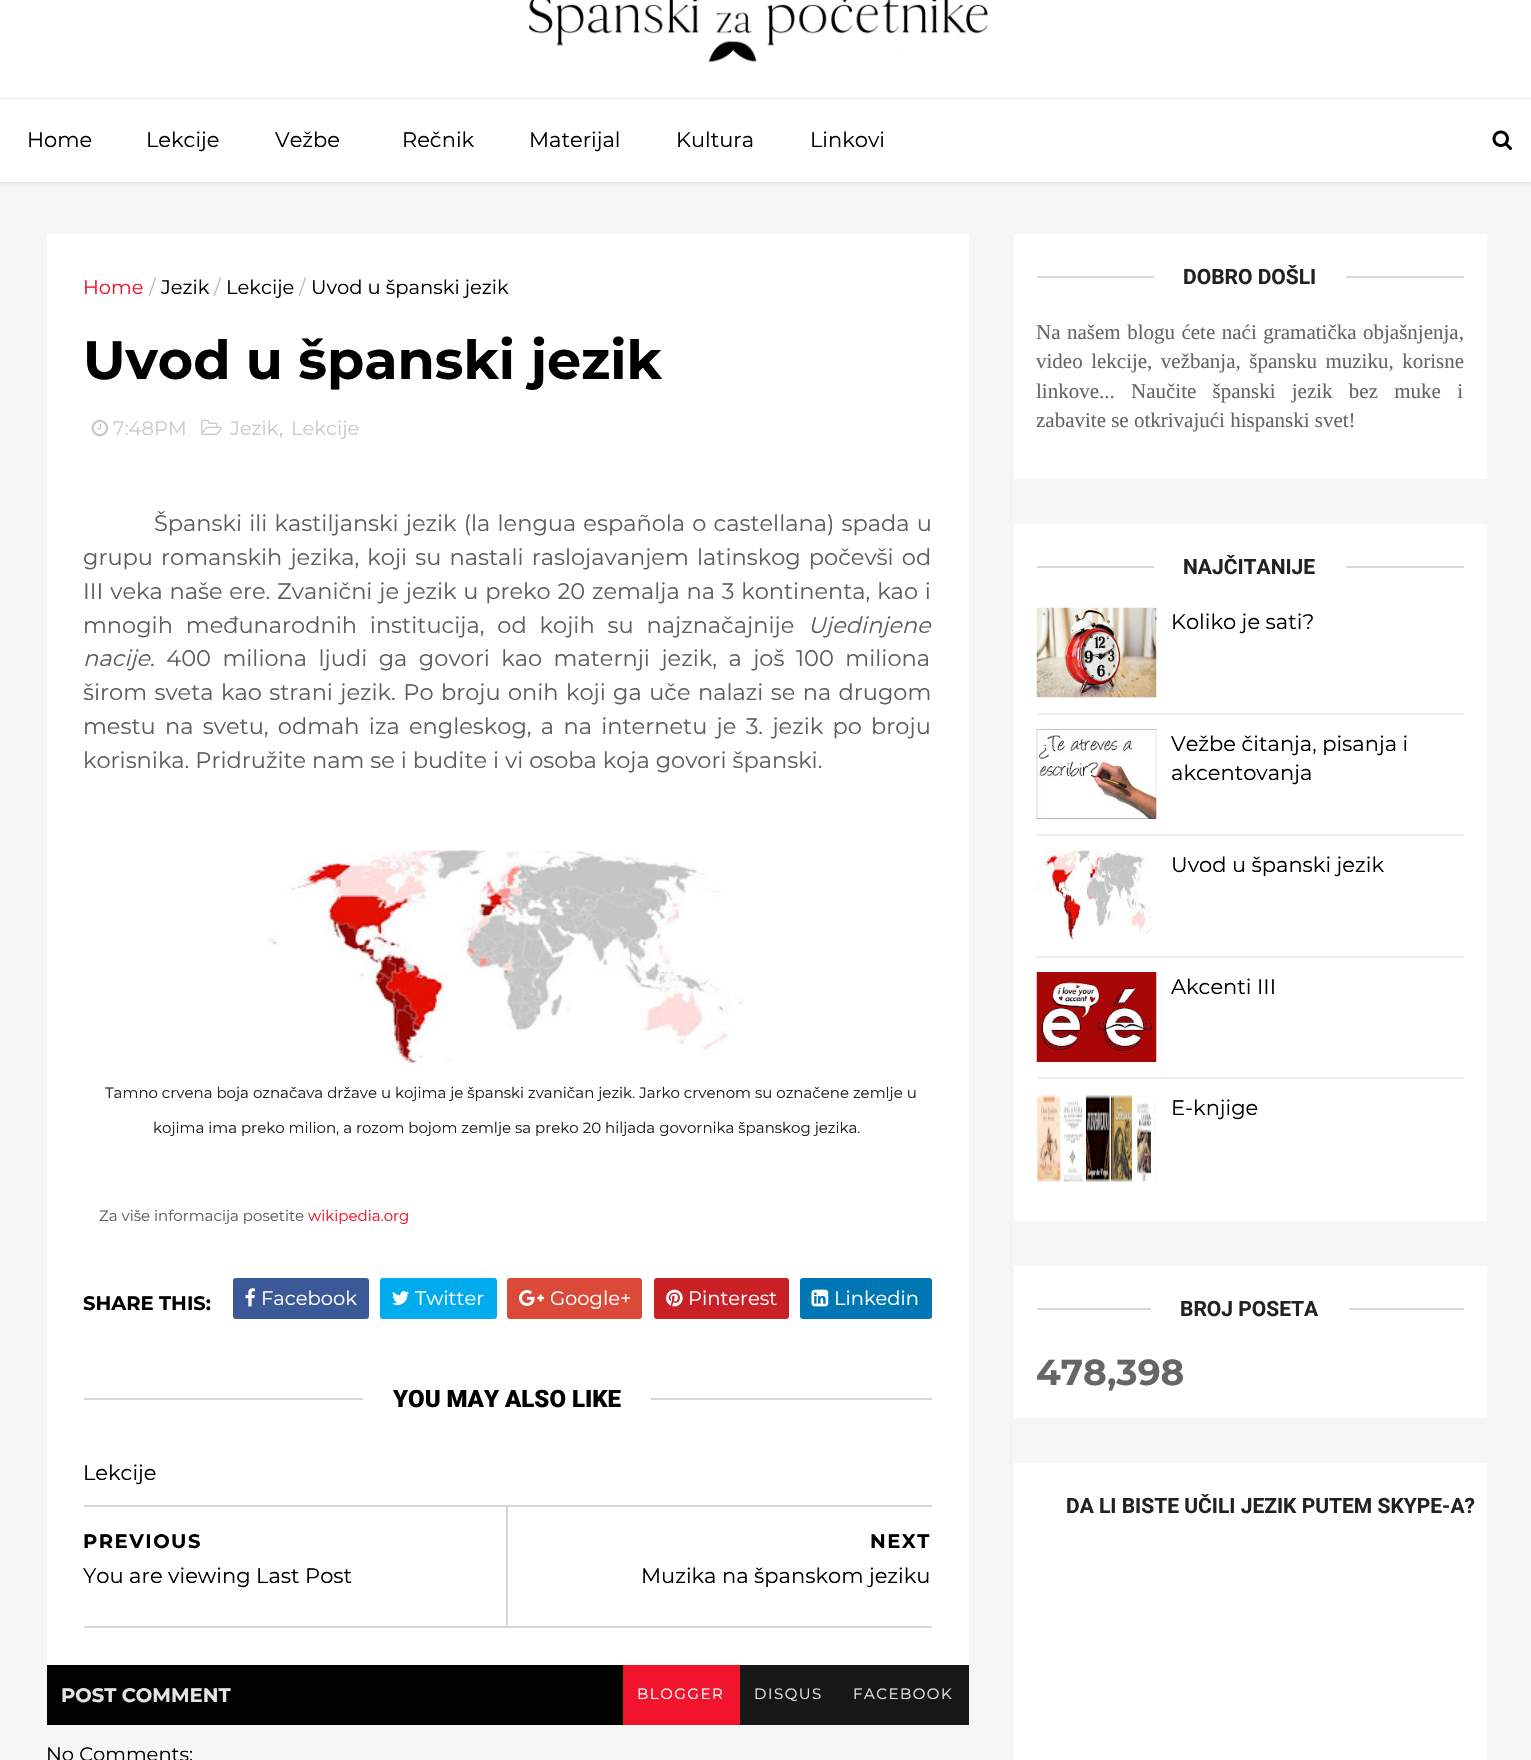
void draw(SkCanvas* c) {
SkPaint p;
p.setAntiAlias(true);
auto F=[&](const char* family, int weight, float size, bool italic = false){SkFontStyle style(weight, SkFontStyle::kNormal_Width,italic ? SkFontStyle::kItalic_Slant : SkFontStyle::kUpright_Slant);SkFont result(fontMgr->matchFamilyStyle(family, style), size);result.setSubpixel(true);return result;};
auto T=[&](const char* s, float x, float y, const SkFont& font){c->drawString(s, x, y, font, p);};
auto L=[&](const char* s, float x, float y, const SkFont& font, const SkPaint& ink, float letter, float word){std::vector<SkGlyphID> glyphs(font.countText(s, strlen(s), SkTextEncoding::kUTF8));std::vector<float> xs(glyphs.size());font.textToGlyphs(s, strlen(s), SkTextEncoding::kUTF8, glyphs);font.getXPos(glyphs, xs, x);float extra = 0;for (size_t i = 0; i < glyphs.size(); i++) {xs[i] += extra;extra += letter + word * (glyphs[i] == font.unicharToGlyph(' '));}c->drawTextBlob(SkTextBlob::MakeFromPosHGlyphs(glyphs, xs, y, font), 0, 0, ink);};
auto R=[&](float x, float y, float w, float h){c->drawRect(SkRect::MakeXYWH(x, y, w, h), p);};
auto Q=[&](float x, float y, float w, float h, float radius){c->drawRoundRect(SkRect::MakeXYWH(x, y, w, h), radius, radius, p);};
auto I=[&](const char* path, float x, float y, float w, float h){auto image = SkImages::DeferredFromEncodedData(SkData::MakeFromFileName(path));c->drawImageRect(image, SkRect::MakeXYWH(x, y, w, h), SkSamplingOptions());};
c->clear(0xfff6f6f6);
p.setColor(0x1a000000);
p.setMaskFilter(SkMaskFilter::MakeBlur(kNormal_SkBlurStyle, 1.5));
c->drawRect(SkRect::MakeXYWH(0,99,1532,84),p);
p.setMaskFilter(nullptr);
p.setColor(0xffffffff);
R(0,0,1531,98);
I("1.png",529,0,459,63);
R(0,99,1531,83);
auto f1 = F("Montserrat",400,21);
p.setColor(0xff000000);
T("Home",27,147,f1);
T("Lekcije",146,147,f1);
T("Vežbe",275,147,f1);
T("Rečnik",402,147,f1);
T("Materijal",529,147,f1);
T("Kultura",676,147,f1);
T("Linkovi",810,147,f1);
I("2.png",1492,130,20,20);
p.setColor(0xfff3f3f3);
R(1010,234,2,1526);
p.setColor(0xffffffff);
R(47,234,922,1431);
auto f2 = F("Montserrat",400,19.5);
p.setColor(0xfff2132d);
T("Home",83,294,f2);
p.setColor(0xffbdbdbd);
T("/",149,294,f2);
p.setColor(0xff000000);
T("Jezik",161,294,f2);
p.setColor(0xffbdbdbd);
T("/",214,294,f2);
p.setColor(0xff000000);
T("Lekcije",226,294,f2);
p.setColor(0xffbdbdbd);
T("/",299,294,f2);
p.setColor(0xff000000);
T("Uvod u španski jezik",311,294,f2);
auto f3 = F("Montserrat",100,54);
T("Uvod u španski jezik",83,379,f3);
I("3.png",91,419,18,18);
p.setColor(0xffcbcbcb);
T("7:48 PM",113,435,f2);
I("4.png",201,419,21,16);
T("Jezik",230,435,f2);
p.setColor(0xffbdbdbd);
T(",",279,435,f2);
p.setColor(0xffcbcbcb);
T("Lekcije",291,435,f2);
auto f4 = F("Montserrat",400,22.5);
p.setColor(0xff5e5e5e);
L("Španski ili kastiljanski jezik (la lengua española o castellana) spada u",154,531,f4,p,0,1.25);
L("grupu romanskih jezika, koji su nastali raslojavanjem latinskog počevši od",83,565,f4,p,0,2.25);
L("III veka naše ere. Zvanični je jezik u preko 20 zemalja na 3 kontinenta, kao i",83,599,f4,p,0,.9);
L("mnogih međunarodnih institucija, od kojih su najznačajnije",83,633,f4,p,0,7);
auto f5 = F("Montserrat",400,22.5,true);
T("Ujedinjene",808,633,f5);
T("nacije",83,666,f5);
L(". 400 miliona ljudi ga govori kao maternji jezik, a još 100 miliona",150,666,f4,p,0,5.6);
L("širom sveta kao strani jezik. Po broju onih koji ga uče nalazi se na drugom",83,700,f4,p,0,1.5);
L("mestu na svetu, odmah iza engleskog, a na internetu je 3. jezik po broju",83,734,f4,p,0,3.4);
T("korisnika. Pridružite nam se i budite i vi osoba koja govori španski.",83,768,f4);
I("5.png",267,850,478,215);
auto f6 = F("Montserrat",400,15);
p.setColor(0xff222222);
T("Tamno crvena boja označava države u kojima je španski zvaničan jezik. Jarko crvenom su označene zemlje u",105,1098,f6);
T("kojima ima preko milion, a rozom bojom zemlje sa preko 20 hiljada govornika španskog jezika.",153,1133,f6);
p.setColor(0xff5e5e5e);
T("Za više informacija posetite",99,1221,f6);
p.setColor(0xfff2132d);
T("wikipedia.org",308,1221,f6);
auto f7 = F("Montserrat",100,19.5);
p.setColor(0xff000000);
T("SHARE THIS:",83,1310,f7);
p.setColor(0xff3b5998);
Q(233,1278,136,41,3);
I("6.png",245,1288,10,19);
p.setColor(0xffffffff);
T("Facebook",261,1305,f2);
p.setColor(0xff00acee);
Q(380,1278,117,41,3);
I("7.png",392,1291,17,14);
p.setColor(0xffffffff);
T("Twitter",415,1305,f2);
p.setColor(0xffdb4a39);
Q(507,1278,135,41,3);
I("8.png",519,1290,26,16);
p.setColor(0xffffffff);
T("Google+",550,1305,f2);
p.setColor(0xffca2127);
Q(654,1278,135,41,3);
I("9.png",666,1289,17,18);
p.setColor(0xffffffff);
T("Pinterest",688,1305,f2);
p.setColor(0xff0077b5);
Q(800,1278,132,41,3);
I("10.png",811,1289,18,18);
p.setColor(0xffffffff);
T("Linkedin",834,1305,f2);
p.setColor(0xffd7d7d7);
R(84,1398,279,2);
auto f8 = F("Roboto",900,24);
p.setColor(0xff000000);
T("YOU MAY ALSO LIKE",393,1407,f8);
p.setColor(0xffd7d7d7);
R(651,1398,281,2);
p.setColor(0xff000000);
T("Lekcije",83,1480,f1);
p.setColor(0xffd7d7d7);
R(84,1505,848,2);
R(84,1626,848,2);
R(506,1506,2,120);
p.setColor(0xff000000);
L("PREVIOUS",83,1548,f7,p,1.5,0);
T("You are viewing Last Post",83,1583,f1);
L("NEXT",870,1548,f7,p,1.5,0);
T("Muzika na španskom jeziku",641,1583,f1);
p.setColor(0xff010101);
R(47,1665,576,60);
p.setColor(0xffe4e4e4);
T("POST COMMENT",61,1702,f7);
p.setColor(0xfff2132d);
R(623,1665,117,60);
p.setColor(0xffffffff);
L("BLOGGER",637,1699,f6,p,1.5,0);
p.setColor(0xff171717);
R(740,1665,229,60);
p.setColor(0xffe4e4e4);
L("DISQUS",754,1699,f6,p,1.5,0);
L("FACEBOOK",853,1699,f6,p,1.5,0);
p.setColor(0xff000000);
T("No Comments:",46,1761,f2);
p.setColor(0xffffffff);
R(1014,234,473,245);
p.setColor(0xffd9d9d9);
R(1037,276,117,2);
auto f9 = F("Roboto",700,21);
p.setColor(0xff222222);
T("DOBRO DOŠLI",1183,284,f9);
p.setColor(0xffd9d9d9);
R(1346,276,118,2);
auto f10 = F("Liberation Serif",400,21);
p.setColor(0xff666666);
L("Na našem blogu ćete naći gramatička objašnjenja,",1036,339,f10,p,0,1.25);
L("video lekcije, vežbanja, špansku muziku, korisne",1036,368,f10,p,0,3.25);
L("linkove... Naučite španski jezik bez muke i",1036,398,f10,p,0,11);
T("zabavite se otkrivajući hispanski svet!",1036,427,f10);
p.setColor(0xffffffff);
R(1014,524,473,697);
p.setColor(0xffd9d9d9);
R(1037,566,117,2);
p.setColor(0xff222222);
T("NAJČITANIJE",1183,574,f9);
p.setColor(0xffd9d9d9);
R(1346,566,118,2);
I("11.png",1036,607,121,91);
p.setColor(0xff000000);
T("Koliko je sati?",1171,629,f1);
p.setColor(0xffeeeeee);
R(1037,713,427,2);
I("12.png",1036,729,121,90);
p.setColor(0xff000000);
T("Vežbe čitanja, pisanja i",1171,751,f1);
T("akcentovanja",1171,780,f1);
p.setColor(0xffeeeeee);
R(1037,834,427,2);
I("13.png",1037,850,115,90);
p.setColor(0xff000000);
T("Uvod u španski jezik",1171,872,f1);
p.setColor(0xffeeeeee);
R(1037,956,427,2);
I("14.png",1036,972,121,90);
p.setColor(0xff000000);
T("Akcenti III",1171,994,f1);
p.setColor(0xffeeeeee);
R(1037,1077,427,2);
I("15.png",1037,1095,119,87);
p.setColor(0xff000000);
T("E-knjige",1171,1115,f1);
p.setColor(0xffffffff);
R(1014,1266,473,152);
p.setColor(0xffd9d9d9);
R(1037,1308,114,2);
p.setColor(0xff222222);
T("BROJ POSETA",1180,1316,f9);
p.setColor(0xffd9d9d9);
R(1349,1308,115,2);
auto f11 = F("Montserrat",100,36);
p.setColor(0xff666666);
T("478,398",1036,1385,f11);
p.setColor(0xffffffff);
R(1014,1463,473,297);
p.setColor(0xff222222);
T("DA LI BISTE UČILI JEZIK PUTEM SKYPE-A?",1066,1513,f9);
}
